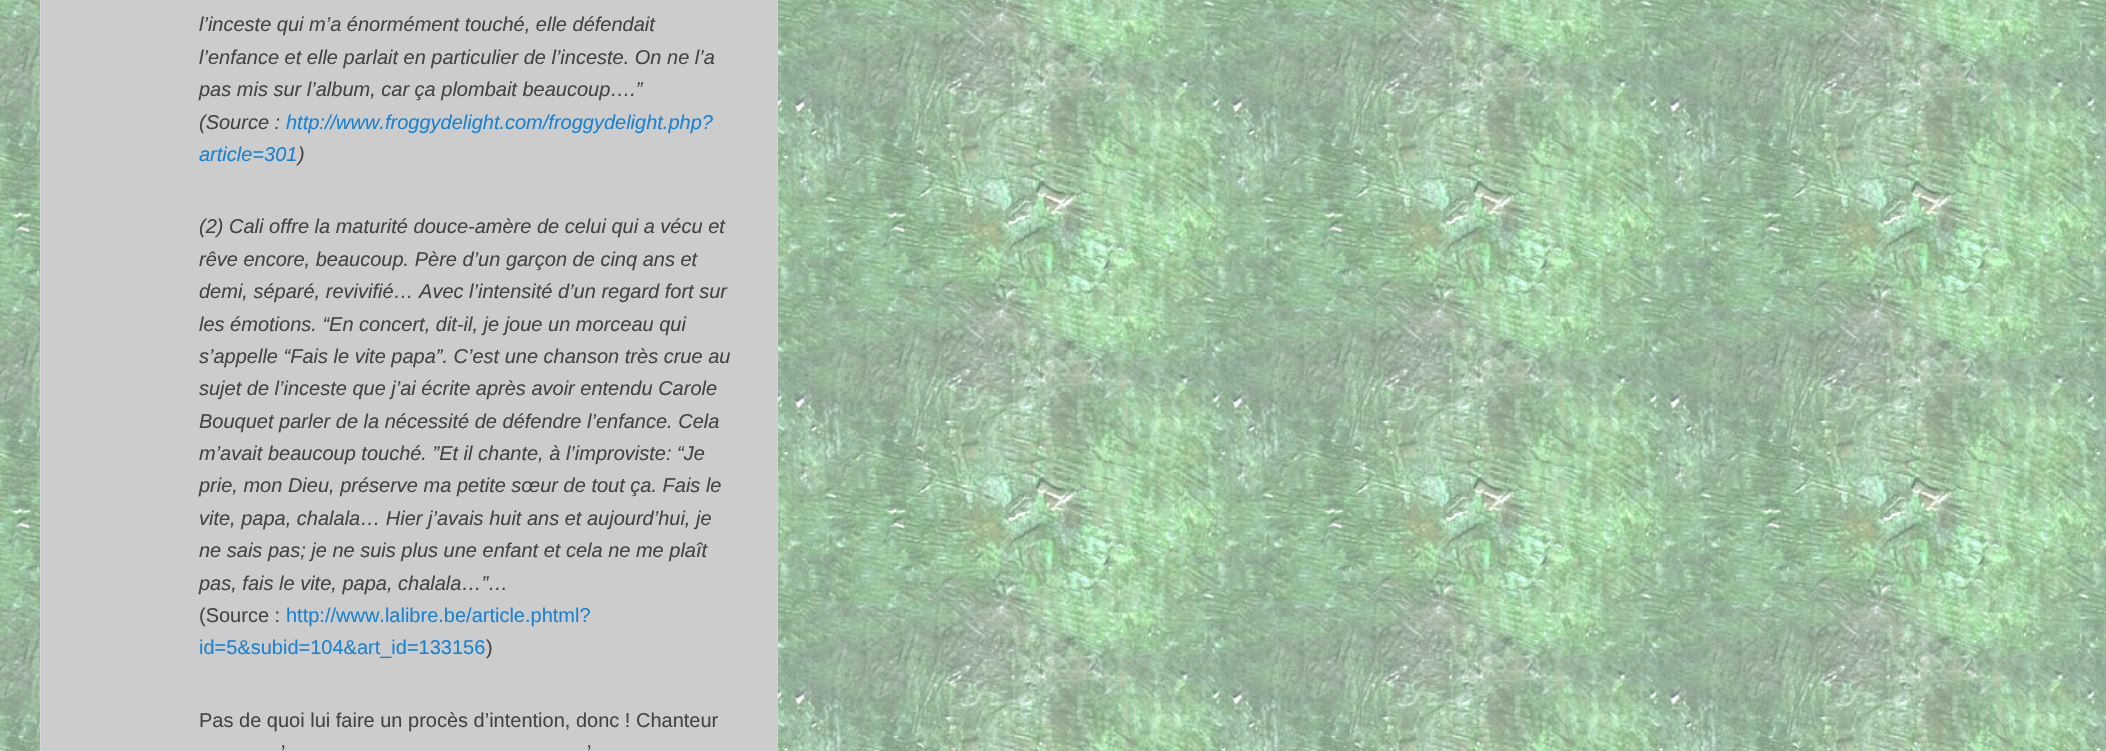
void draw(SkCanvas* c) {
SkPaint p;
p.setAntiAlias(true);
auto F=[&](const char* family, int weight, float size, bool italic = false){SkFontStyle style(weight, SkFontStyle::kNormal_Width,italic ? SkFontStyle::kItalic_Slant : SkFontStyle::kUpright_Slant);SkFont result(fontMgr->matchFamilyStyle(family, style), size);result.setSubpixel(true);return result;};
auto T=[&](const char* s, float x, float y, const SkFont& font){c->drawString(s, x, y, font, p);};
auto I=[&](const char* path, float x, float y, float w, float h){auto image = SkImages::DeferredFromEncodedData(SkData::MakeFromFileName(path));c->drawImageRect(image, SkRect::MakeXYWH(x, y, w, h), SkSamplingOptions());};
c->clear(0xffffffff);
I("1.png",0,0,2106,751);
p.setColor(0xffcccccc);
c->drawRect(SkRect::MakeXYWH(40.5,-.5,737,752),p);
p.setStroke(true);
p.setStrokeWidth(1);
p.setColor(0xffd3d3d3);
c->drawRect(SkRect::MakeXYWH(40.5,-.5,737,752),p);
auto f1 = F("Liberation Sans",400,20,true);
p.setStroke(false);
p.setColor(0xff444444);
T("l’inceste qui m’a énormément touché, elle défendait",199,31,f1);
T("l’enfance et elle parlait en particulier de l’inceste. On ne l’a",199,64,f1);
T("pas mis sur l’album, car ça plombait beaucoup….”",199,96,f1);
T("(Source :",199,129,f1);
p.setColor(0xff1982d1);
T("http://www.froggydelight.com/froggydelight.php?",286,129,f1);
T("article=301",199,161,f1);
p.setColor(0xff444444);
T(")",298,161,f1);
T("(2) Cali offre la maturité douce-amère de celui qui a vécu et",199,233,f1);
T("rêve encore, beaucoup. Père d’un garçon de cinq ans et",199,266,f1);
T("demi, séparé, revivifié… Avec l’intensité d’un regard fort sur",199,298,f1);
T("les émotions. “En concert, dit-il, je joue un morceau qui",199,331,f1);
T("s’appelle “Fais le vite papa”. C’est une chanson très crue au",199,363,f1);
T("sujet de l’inceste que j’ai écrite après avoir entendu Carole",199,395,f1);
T("Bouquet parler de la nécessité de défendre l’enfance. Cela",199,428,f1);
T("m’avait beaucoup touché. ”Et il chante, à l’improviste: “Je",199,460,f1);
T("prie, mon Dieu, préserve ma petite sœur de tout ça. Fais le",199,492,f1);
T("vite, papa, chalala… Hier j’avais huit ans et aujourd’hui, je",199,525,f1);
T("ne sais pas; je ne suis plus une enfant et cela ne me plaît",199,557,f1);
T("pas, fais le vite, papa, chalala…”…",199,590,f1);
auto f2 = F("Liberation Sans",400,20);
T("(Source :",199,622,f2);
p.setColor(0xff1982d1);
T("http://www.lalibre.be/article.phtml?",286,622,f2);
T("id=5&subid=104&art_id=133156",199,654,f2);
p.setColor(0xff444444);
T(")",486,654,f2);
T("Pas de quoi lui faire un procès d’intention, donc ! Chanteur",199,727,f2);
T("’",281,759,f2);
T("’",587,759,f2);
}
